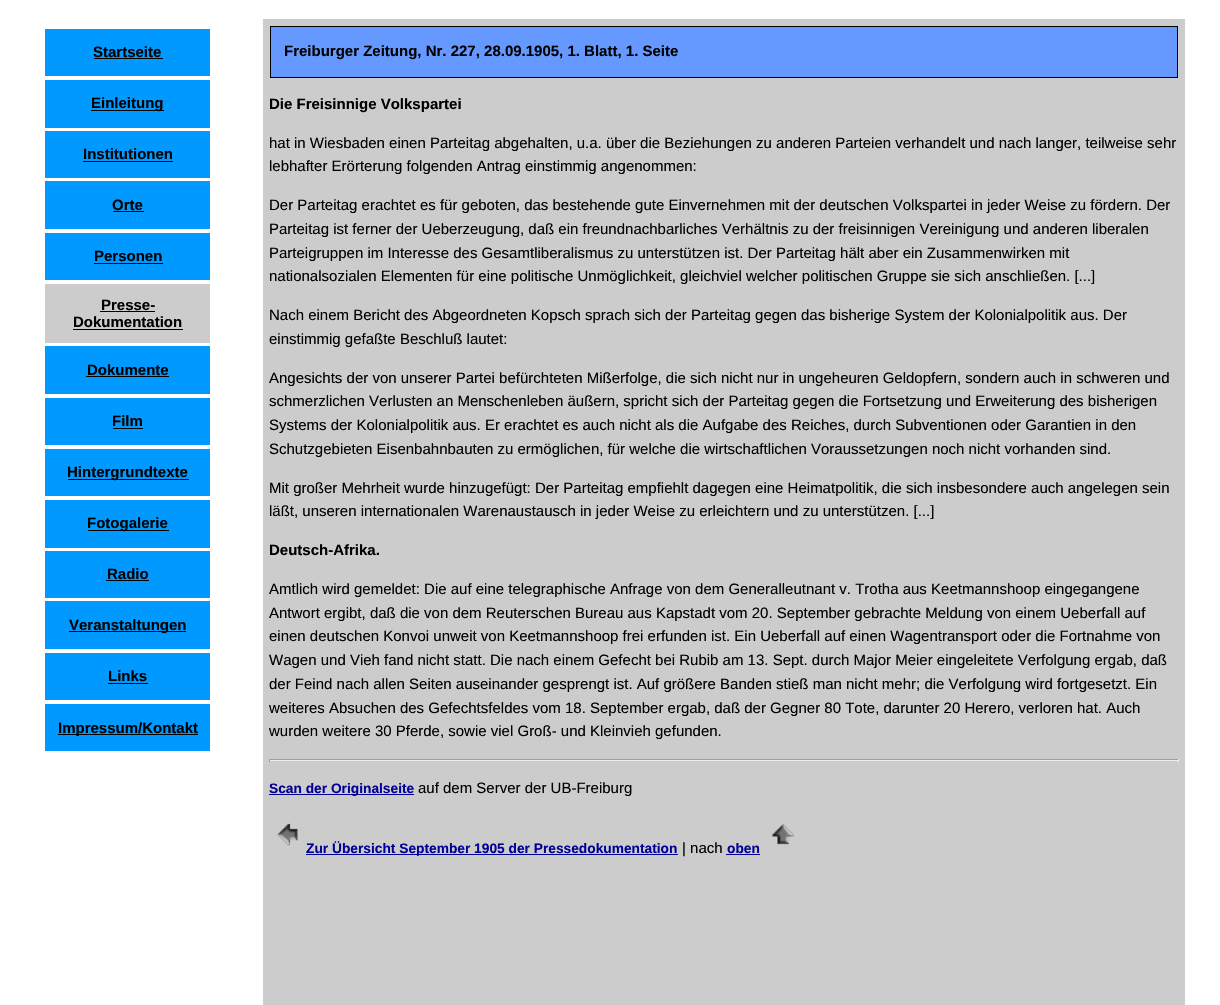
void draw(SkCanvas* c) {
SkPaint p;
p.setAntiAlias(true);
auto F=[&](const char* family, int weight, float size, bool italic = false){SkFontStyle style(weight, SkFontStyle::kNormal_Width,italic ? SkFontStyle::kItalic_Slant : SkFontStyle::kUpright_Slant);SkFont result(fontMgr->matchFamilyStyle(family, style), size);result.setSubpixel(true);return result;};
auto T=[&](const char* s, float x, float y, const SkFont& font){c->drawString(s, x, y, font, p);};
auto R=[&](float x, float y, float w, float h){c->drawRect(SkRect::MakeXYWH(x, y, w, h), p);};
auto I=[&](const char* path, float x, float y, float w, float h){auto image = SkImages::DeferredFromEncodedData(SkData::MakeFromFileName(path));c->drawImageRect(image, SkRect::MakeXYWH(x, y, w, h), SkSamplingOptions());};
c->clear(0xffffffff);
p.setColor(0xff0099ff);
R(45,29,165,47);
auto f1 = F("Liberation Sans",700,15);
p.setColor(0xff000000);
T("Startseite",93,57,f1);
R(94,58,69,1);
p.setColor(0xff0099ff);
R(45,80,165,48);
p.setColor(0xff000000);
R(91,110,73,1);
T("Einleitung",91,108,f1);
p.setColor(0xff0099ff);
R(45,131,165,47);
p.setColor(0xff000000);
T("Institutionen",83,159,f1);
R(83,161,90,1);
p.setColor(0xff0099ff);
R(45,181,165,48);
p.setColor(0xff000000);
T("Orte",112,210,f1);
R(113,211,31,1);
p.setColor(0xff0099ff);
R(45,233,165,47);
p.setColor(0xff000000);
T("Personen",94,261,f1);
R(94,263,69,1);
p.setColor(0xffcccccc);
R(45,284,165,59);
p.setColor(0xff000000);
T("Presse-",101,310,f1);
R(100,311,55,1);
T("Dokumentation",73,327,f1);
R(73,329,110,1);
p.setColor(0xff0099ff);
R(45,346,165,48);
p.setColor(0xff000000);
T("Dokumente",87,375,f1);
R(86,376,83,1);
p.setColor(0xff0099ff);
R(45,398,165,47);
p.setColor(0xff000000);
T("Film",112,426,f1);
R(113,428,30,1);
p.setColor(0xff0099ff);
R(45,449,165,47);
p.setColor(0xff000000);
R(68,479,121,1);
T("Hintergrundtexte",67,477,f1);
p.setColor(0xff0099ff);
R(45,500,165,48);
p.setColor(0xff000000);
R(88,530,81,1);
T("Fotogalerie",87,528,f1);
p.setColor(0xff0099ff);
R(45,551,165,47);
p.setColor(0xff000000);
T("Radio",107,579,f1);
R(106,580,43,1);
p.setColor(0xff0099ff);
R(45,601,165,48);
p.setColor(0xff000000);
R(69,631,117,1);
T("Veranstaltungen",69,630,f1);
p.setColor(0xff0099ff);
R(45,653,165,47);
p.setColor(0xff000000);
T("Links",108,681,f1);
R(108,683,40,1);
p.setColor(0xff0099ff);
R(45,704,165,47);
p.setColor(0xff000000);
R(58,734,140,1);
T("Impressum/Kontakt",58,733,f1);
p.setColor(0xffcccccc);
R(263,19,922,986);
p.setColor(0xff6699ff);
c->drawRect(SkRect::MakeXYWH(270.5,26.5,907,51),p);
p.setStroke(true);
p.setStrokeWidth(1);
p.setColor(0xff000000);
c->drawRect(SkRect::MakeXYWH(270.5,26.5,907,51),p);
p.setStroke(false);
T("Freiburger Zeitung, Nr. 227, 28.09.1905, 1. Blatt, 1. Seite",284,56,f1);
T("Die Freisinnige Volkspartei",269,109,f1);
auto f2 = F("Liberation Sans",400,15);
T("hat in Wiesbaden einen Parteitag abgehalten, u.a. über die Beziehungen zu anderen Parteien verhandelt und nach langer, teilweise sehr",269,148,f2);
T("lebhafter Erörterung folgenden Antrag einstimmig angenommen:",269,171,f2);
T("Der Parteitag erachtet es für geboten, das bestehende gute Einvernehmen mit der deutschen Volkspartei in jeder Weise zu fördern. Der",269,210,f2);
T("Parteitag ist ferner der Ueberzeugung, daß ein freundnachbarliches Verhältnis zu der freisinnigen Vereinigung und anderen liberalen",269,234,f2);
T("Parteigruppen im Interesse des Gesamtliberalismus zu unterstützen ist. Der Parteitag hält aber ein Zusammenwirken mit",269,258,f2);
T("nationalsozialen Elementen für eine politische Unmöglichkeit, gleichviel welcher politischen Gruppe sie sich anschließen. [...]",269,281,f2);
T("Nach einem Bericht des Abgeordneten Kopsch sprach sich der Parteitag gegen das bisherige System der Kolonialpolitik aus. Der",269,320,f2);
T("einstimmig gefaßte Beschluß lautet:",269,344,f2);
T("Angesichts der von unserer Partei befürchteten Mißerfolge, die sich nicht nur in ungeheuren Geldopfern, sondern auch in schweren und",269,383,f2);
T("schmerzlichen Verlusten an Menschenleben äußern, spricht sich der Parteitag gegen die Fortsetzung und Erweiterung des bisherigen",269,406,f2);
T("Systems der Kolonialpolitik aus. Er erachtet es auch nicht als die Aufgabe des Reiches, durch Subventionen oder Garantien in den",269,430,f2);
T("Schutzgebieten Eisenbahnbauten zu ermöglichen, für welche die wirtschaftlichen Voraussetzungen noch nicht vorhanden sind.",269,454,f2);
T("Mit großer Mehrheit wurde hinzugefügt: Der Parteitag empfiehlt dagegen eine Heimatpolitik, die sich insbesondere auch angelegen sein",269,493,f2);
T("läßt, unseren internationalen Warenaustausch in jeder Weise zu erleichtern und zu unterstützen. [...]",269,516,f2);
T("Deutsch-Afrika.",269,555,f1);
T("Amtlich wird gemeldet: Die auf eine telegraphische Anfrage von dem Generalleutnant v. Trotha aus Keetmannshoop eingegangene",269,594,f2);
T("Antwort ergibt, daß die von dem Reuterschen Bureau aus Kapstadt vom 20. September gebrachte Meldung von einem Ueberfall auf",269,618,f2);
T("einen deutschen Konvoi unweit von Keetmannshoop frei erfunden ist. Ein Ueberfall auf einen Wagentransport oder die Fortnahme von",269,641,f2);
T("Wagen und Vieh fand nicht statt. Die nach einem Gefecht bei Rubib am 13. Sept. durch Major Meier eingeleitete Verfolgung ergab, daß",269,665,f2);
T("der Feind nach allen Seiten auseinander gesprengt ist. Auf größere Banden stieß man nicht mehr; die Verfolgung wird fortgesetzt. Ein",269,689,f2);
T("weiteres Absuchen des Gefechtsfeldes vom 18. September ergab, daß der Gegner 80 Tote, darunter 20 Herero, verloren hat. Auch",269,713,f2);
T("wurden weitere 30 Pferde, sowie viel Groß- und Kleinvieh gefunden.",269,736,f2);
p.setColor(0xff9f9f9f);
R(269,759,910,1);
p.setColor(0xffeeeeee);
R(1178,759,1,3);
R(269,760,910,1);
p.setColor(0xff9f9f9f);
R(269,759,1,3);
p.setColor(0xff000099);
R(269,794,145,1);
auto f3 = F("Liberation Sans",700,13.75);
T("Scan der Originalseite",269,793,f3);
p.setColor(0xff000000);
T("auf dem Server der UB-Freiburg",418,793,f2);
I("1.png",277,823,21,23);
I("2.png",772,824,22,21);
p.setColor(0xff000099);
R(306,854,372,1);
T("Zur Übersicht September 1905 der Pressedokumentation",306,853,f3);
p.setColor(0xff000000);
T("| nach",682,853,f2);
p.setColor(0xff000099);
T("oben",727,853,f3);
R(726,854,34,1);
}
